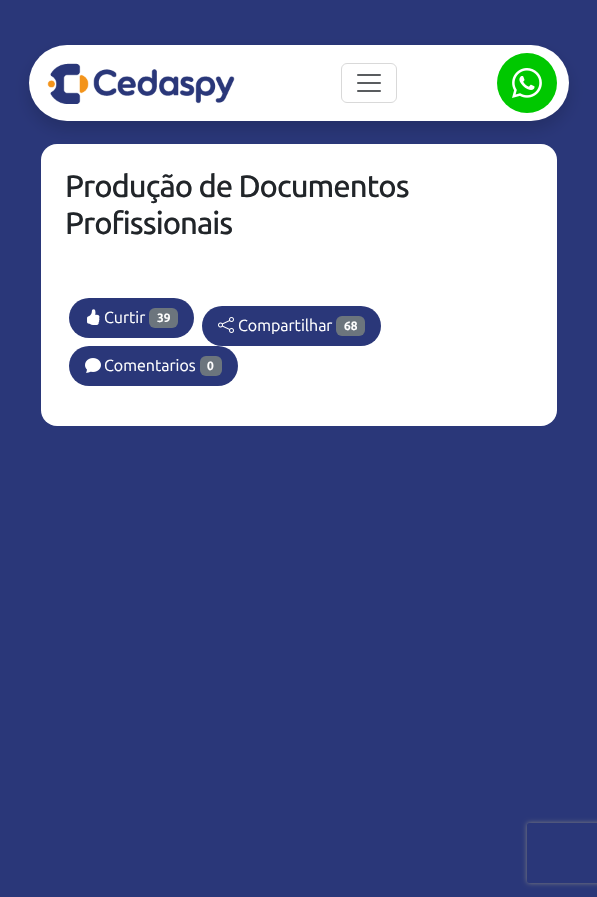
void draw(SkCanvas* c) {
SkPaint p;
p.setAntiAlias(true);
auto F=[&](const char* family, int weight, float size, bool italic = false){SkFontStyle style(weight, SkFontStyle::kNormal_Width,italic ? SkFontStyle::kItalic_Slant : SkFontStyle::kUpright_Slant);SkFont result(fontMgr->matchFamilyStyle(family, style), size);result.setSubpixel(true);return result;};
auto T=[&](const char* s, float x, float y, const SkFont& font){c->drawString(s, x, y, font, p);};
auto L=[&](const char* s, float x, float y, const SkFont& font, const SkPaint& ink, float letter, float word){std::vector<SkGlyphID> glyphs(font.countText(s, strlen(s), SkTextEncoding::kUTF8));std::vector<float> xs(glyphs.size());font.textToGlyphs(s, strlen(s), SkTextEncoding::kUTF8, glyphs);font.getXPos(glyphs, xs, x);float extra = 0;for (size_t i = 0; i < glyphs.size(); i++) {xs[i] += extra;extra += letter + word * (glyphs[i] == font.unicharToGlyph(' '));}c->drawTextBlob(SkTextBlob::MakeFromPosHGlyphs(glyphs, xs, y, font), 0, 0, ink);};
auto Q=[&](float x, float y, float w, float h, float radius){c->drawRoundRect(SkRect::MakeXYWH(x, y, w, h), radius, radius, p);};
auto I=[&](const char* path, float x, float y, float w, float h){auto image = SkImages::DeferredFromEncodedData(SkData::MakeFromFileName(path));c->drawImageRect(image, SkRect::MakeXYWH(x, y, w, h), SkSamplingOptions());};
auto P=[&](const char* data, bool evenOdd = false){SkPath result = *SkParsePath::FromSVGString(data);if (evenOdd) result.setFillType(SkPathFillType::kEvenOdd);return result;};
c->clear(0xff2a3779);
p.setColor(0xffffffff);
Q(41,144,516,282,16);
p.setColor(0x26000000);
p.setMaskFilter(SkMaskFilter::MakeBlur(kNormal_SkBlurStyle, 8));
c->drawRoundRect(SkRect::MakeXYWH(29,53,540,76),38,38,p);
p.setMaskFilter(nullptr);
p.setColor(0xffffffff);
Q(29,45,540,76,38);
I("1.png",47,63,188,41);
p.setStroke(true);
p.setStrokeWidth(1);
p.setColor(0xffd9d9d9);
c->drawRoundRect(SkRect::MakeXYWH(341.5,63.5,55,39),5.5,5.5,p);
I("2.png",357,74,24,18);
p.setStroke(false);
p.setColor(0xff00c800);
c->drawCircle(527,83,30,p);
I("3.png",512,68,30,30);
auto f1 = F("Ubuntu Sans",500,31);
p.setColor(0xff212529);
L("Produção de Documentos",65,197,f1,p,-1,0);
L("Profissionais",65,234,f1,p,-1,0);
p.setColor(0xff2a3779);
Q(69,298,125,40,20);
I("4.png",87,309,13,16);
auto f2 = F("Ubuntu Sans",400,16);
p.setColor(0xffffffff);
T("Curtir",104,323,f2);
p.setColor(0xff6c757d);
Q(149,308,29,20,6);
auto f3 = F("Ubuntu Sans",700,12);
p.setColor(0xffffffff);
T("39",157,322,f3);
p.setColor(0xff2a3779);
Q(202,306,179,40,20);
I("5.png",218,317,16,16);
p.setColor(0xffffffff);
T("Compartilhar",238,331,f2);
p.setColor(0xff6c757d);
Q(336,316,29,20,6);
p.setColor(0xffffffff);
T("68",344,330,f3);
p.setColor(0xff2a3779);
Q(69,346,169,40,20);
I("6.png",85,358,16,15);
p.setColor(0xffffffff);
T("Comentarios",104,371,f2);
p.setColor(0xff6c757d);
Q(200,356,22,20,6);
p.setColor(0xffffffff);
T("0",207,370,f3);
c->save();
c->clipPath(P("M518 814h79v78h-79zm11 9h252c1 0 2 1 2 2v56c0 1-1 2-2 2h-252c-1 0-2-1-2-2v-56c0-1 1-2 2-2z",true),true);
p.setColor(0xff808080);
p.setMaskFilter(SkMaskFilter::MakeBlur(kNormal_SkBlurStyle, 2.5));
c->drawRoundRect(SkRect::MakeXYWH(527,823,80,60),2,2,p);
p.setMaskFilter(nullptr);
c->restore();
}
